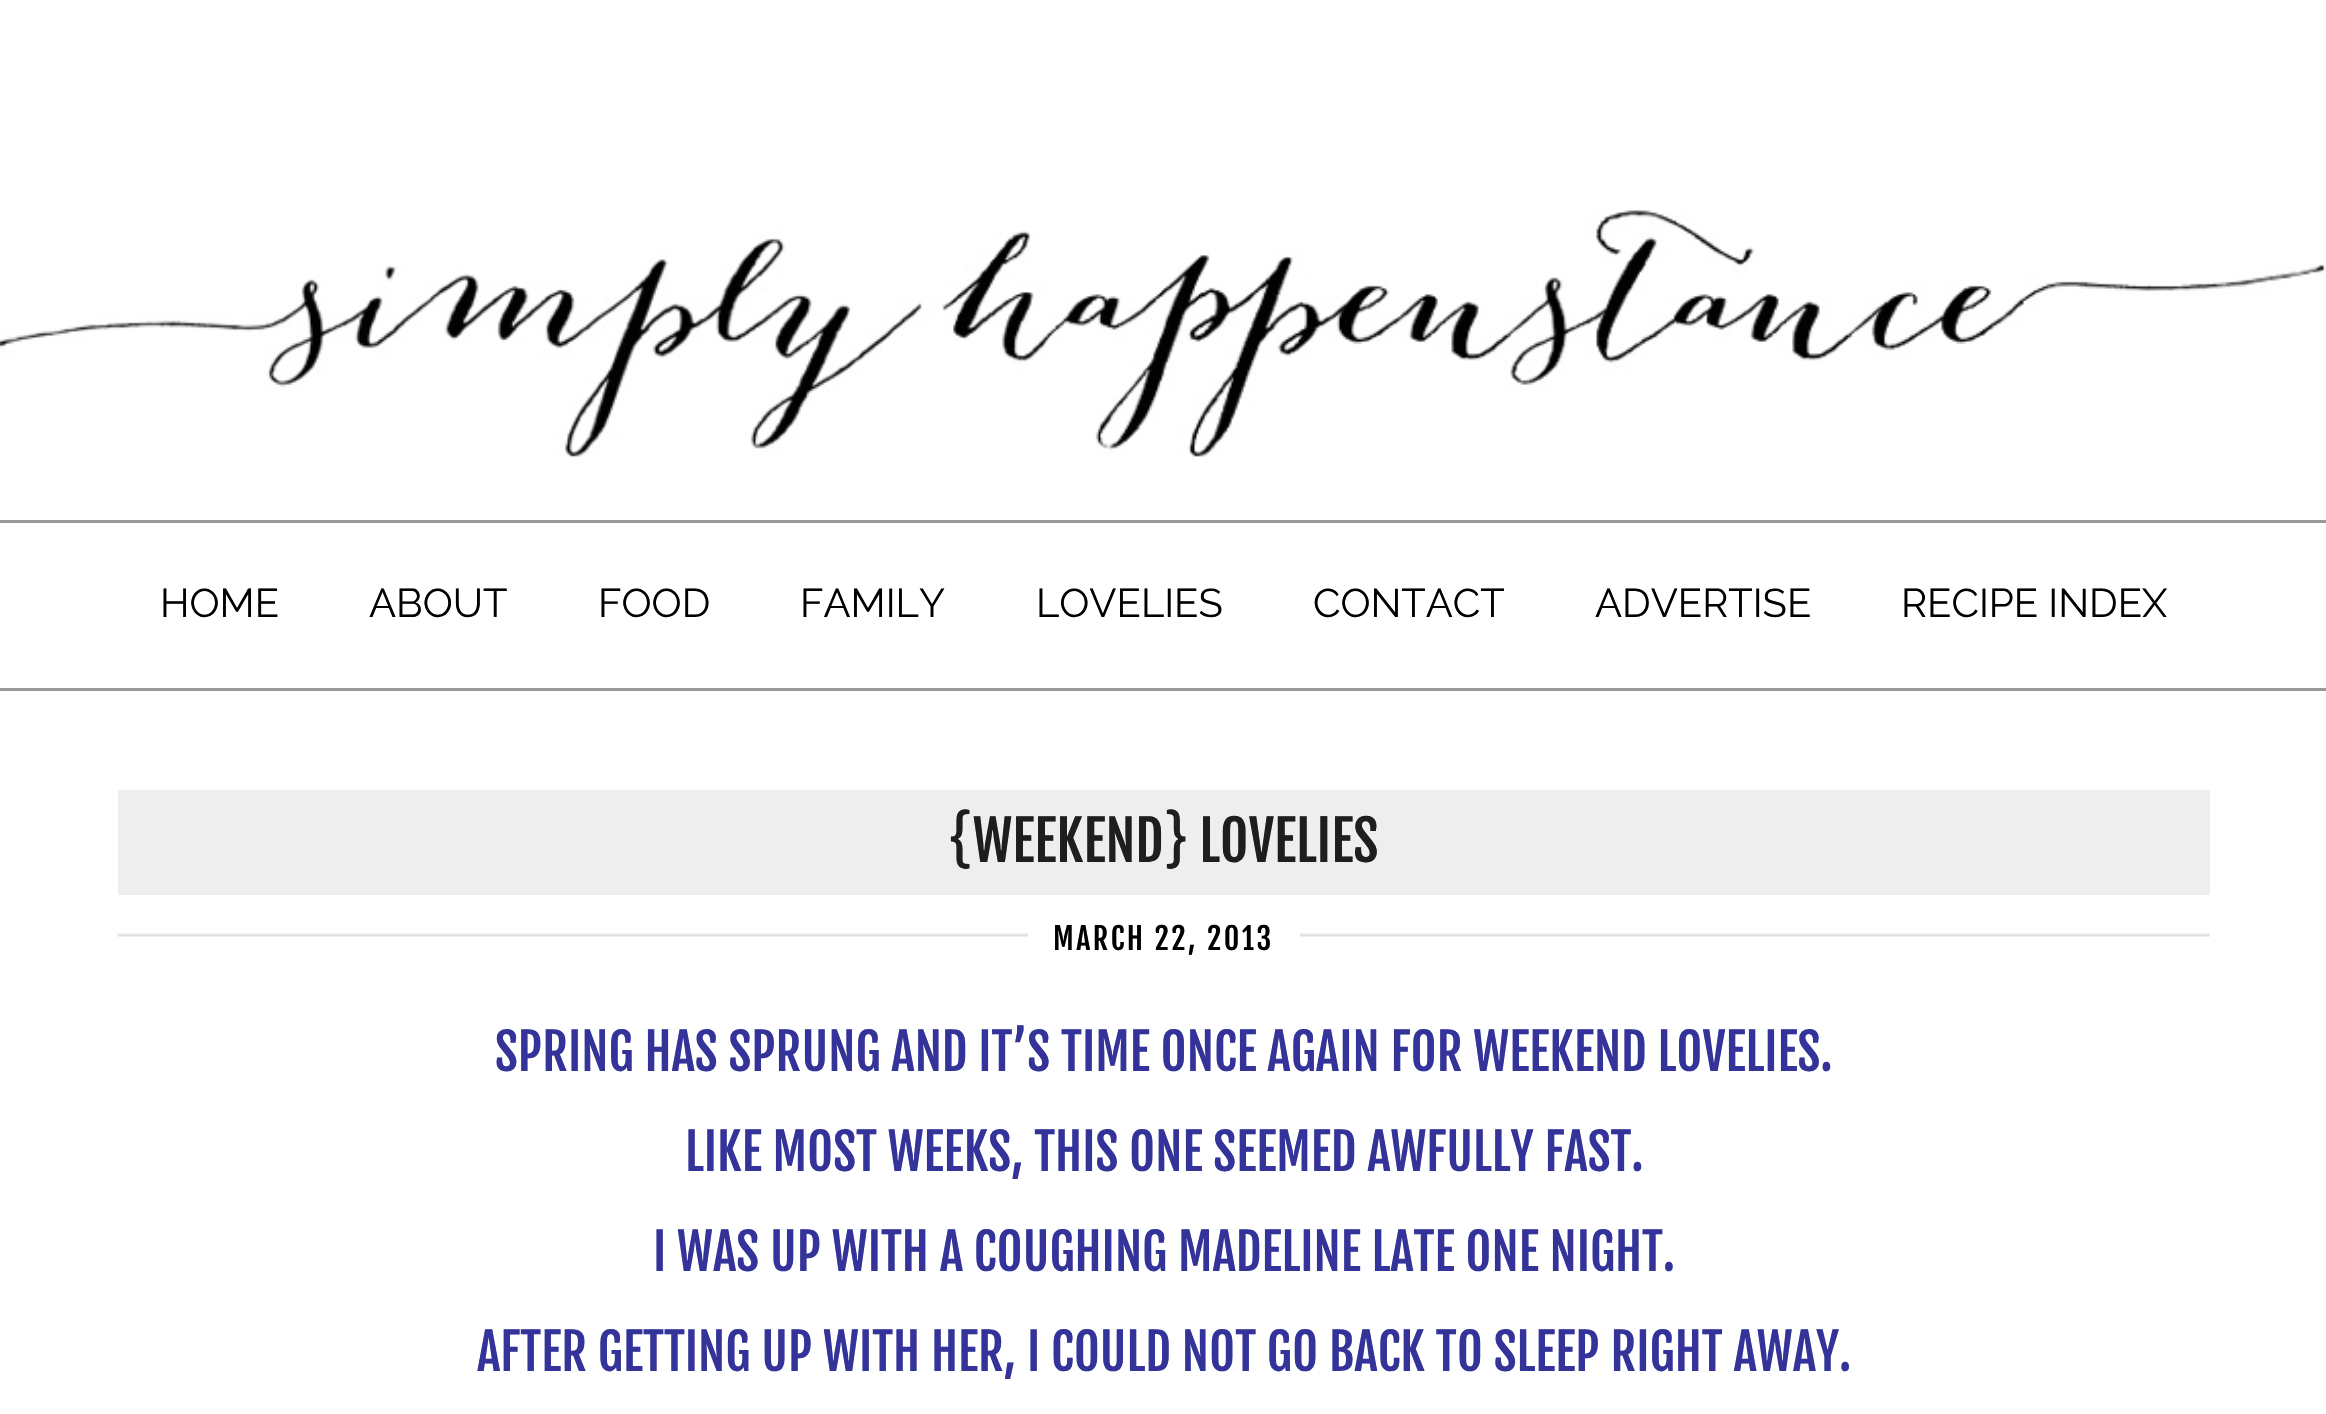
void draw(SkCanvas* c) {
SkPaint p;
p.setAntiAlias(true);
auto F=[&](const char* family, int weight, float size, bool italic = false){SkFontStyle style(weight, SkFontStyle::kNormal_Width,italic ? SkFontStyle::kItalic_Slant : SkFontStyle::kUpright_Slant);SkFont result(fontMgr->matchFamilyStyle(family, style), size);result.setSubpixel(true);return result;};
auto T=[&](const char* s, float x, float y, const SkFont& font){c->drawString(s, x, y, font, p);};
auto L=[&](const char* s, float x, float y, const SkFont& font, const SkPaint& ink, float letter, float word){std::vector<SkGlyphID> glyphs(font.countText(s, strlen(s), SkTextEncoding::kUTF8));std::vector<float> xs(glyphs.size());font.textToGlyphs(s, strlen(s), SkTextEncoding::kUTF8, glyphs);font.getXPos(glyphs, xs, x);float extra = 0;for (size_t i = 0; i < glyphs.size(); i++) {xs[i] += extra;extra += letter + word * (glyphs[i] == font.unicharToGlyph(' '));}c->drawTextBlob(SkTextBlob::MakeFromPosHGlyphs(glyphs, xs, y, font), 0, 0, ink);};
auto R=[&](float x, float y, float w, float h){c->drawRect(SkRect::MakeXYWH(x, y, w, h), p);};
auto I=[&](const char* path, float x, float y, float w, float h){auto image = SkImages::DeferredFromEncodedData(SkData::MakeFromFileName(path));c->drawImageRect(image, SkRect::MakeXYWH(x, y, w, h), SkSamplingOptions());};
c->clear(0xffffffff);
I("1.png",0,210,2326,247);
p.setColor(0xff999999);
R(0,520,2326,3);
R(0,688,2326,3);
auto f1 = F("Raleway",400,40);
p.setColor(0xff000000);
T("HOME",160,617,f1);
T("ABOUT",369,617,f1);
T("FOOD",598,617,f1);
T("FAMILY",800,617,f1);
T("LOVELIES",1036,617,f1);
T("CONTACT",1313,617,f1);
T("ADVERTISE",1595,617,f1);
T("RECIPE INDEX",1901,617,f1);
p.setColor(0xffeeeeee);
R(118,790,2092,105);
auto f2 = F("Fjalla One",400,55);
p.setColor(0xff1e1e1e);
T("{WEEKEND} LOVELIES",949,862,f2);
I("2.png",117,933,2093,4);
p.setColor(0xffffffff);
R(1028,933,272,4);
auto f3 = F("Fjalla One",400,30);
p.setColor(0xff000000);
L("MARCH 22, 2013",1053,950,f3,p,2.5,0);
auto f4 = F("Fjalla One",400,50);
p.setColor(0xff333399);
T("SPRING HAS SPRUNG AND IT’S TIME ONCE AGAIN FOR WEEKEND LOVELIES.",495,1071,f4);
T("LIKE MOST WEEKS, THIS ONE SEEMED AWFULLY FAST.",685,1171,f4);
T("I WAS UP WITH A COUGHING MADELINE LATE ONE NIGHT.",653,1271,f4);
T("AFTER GETTING UP WITH HER, I COULD NOT GO BACK TO SLEEP RIGHT AWAY.",477,1371,f4);
}
